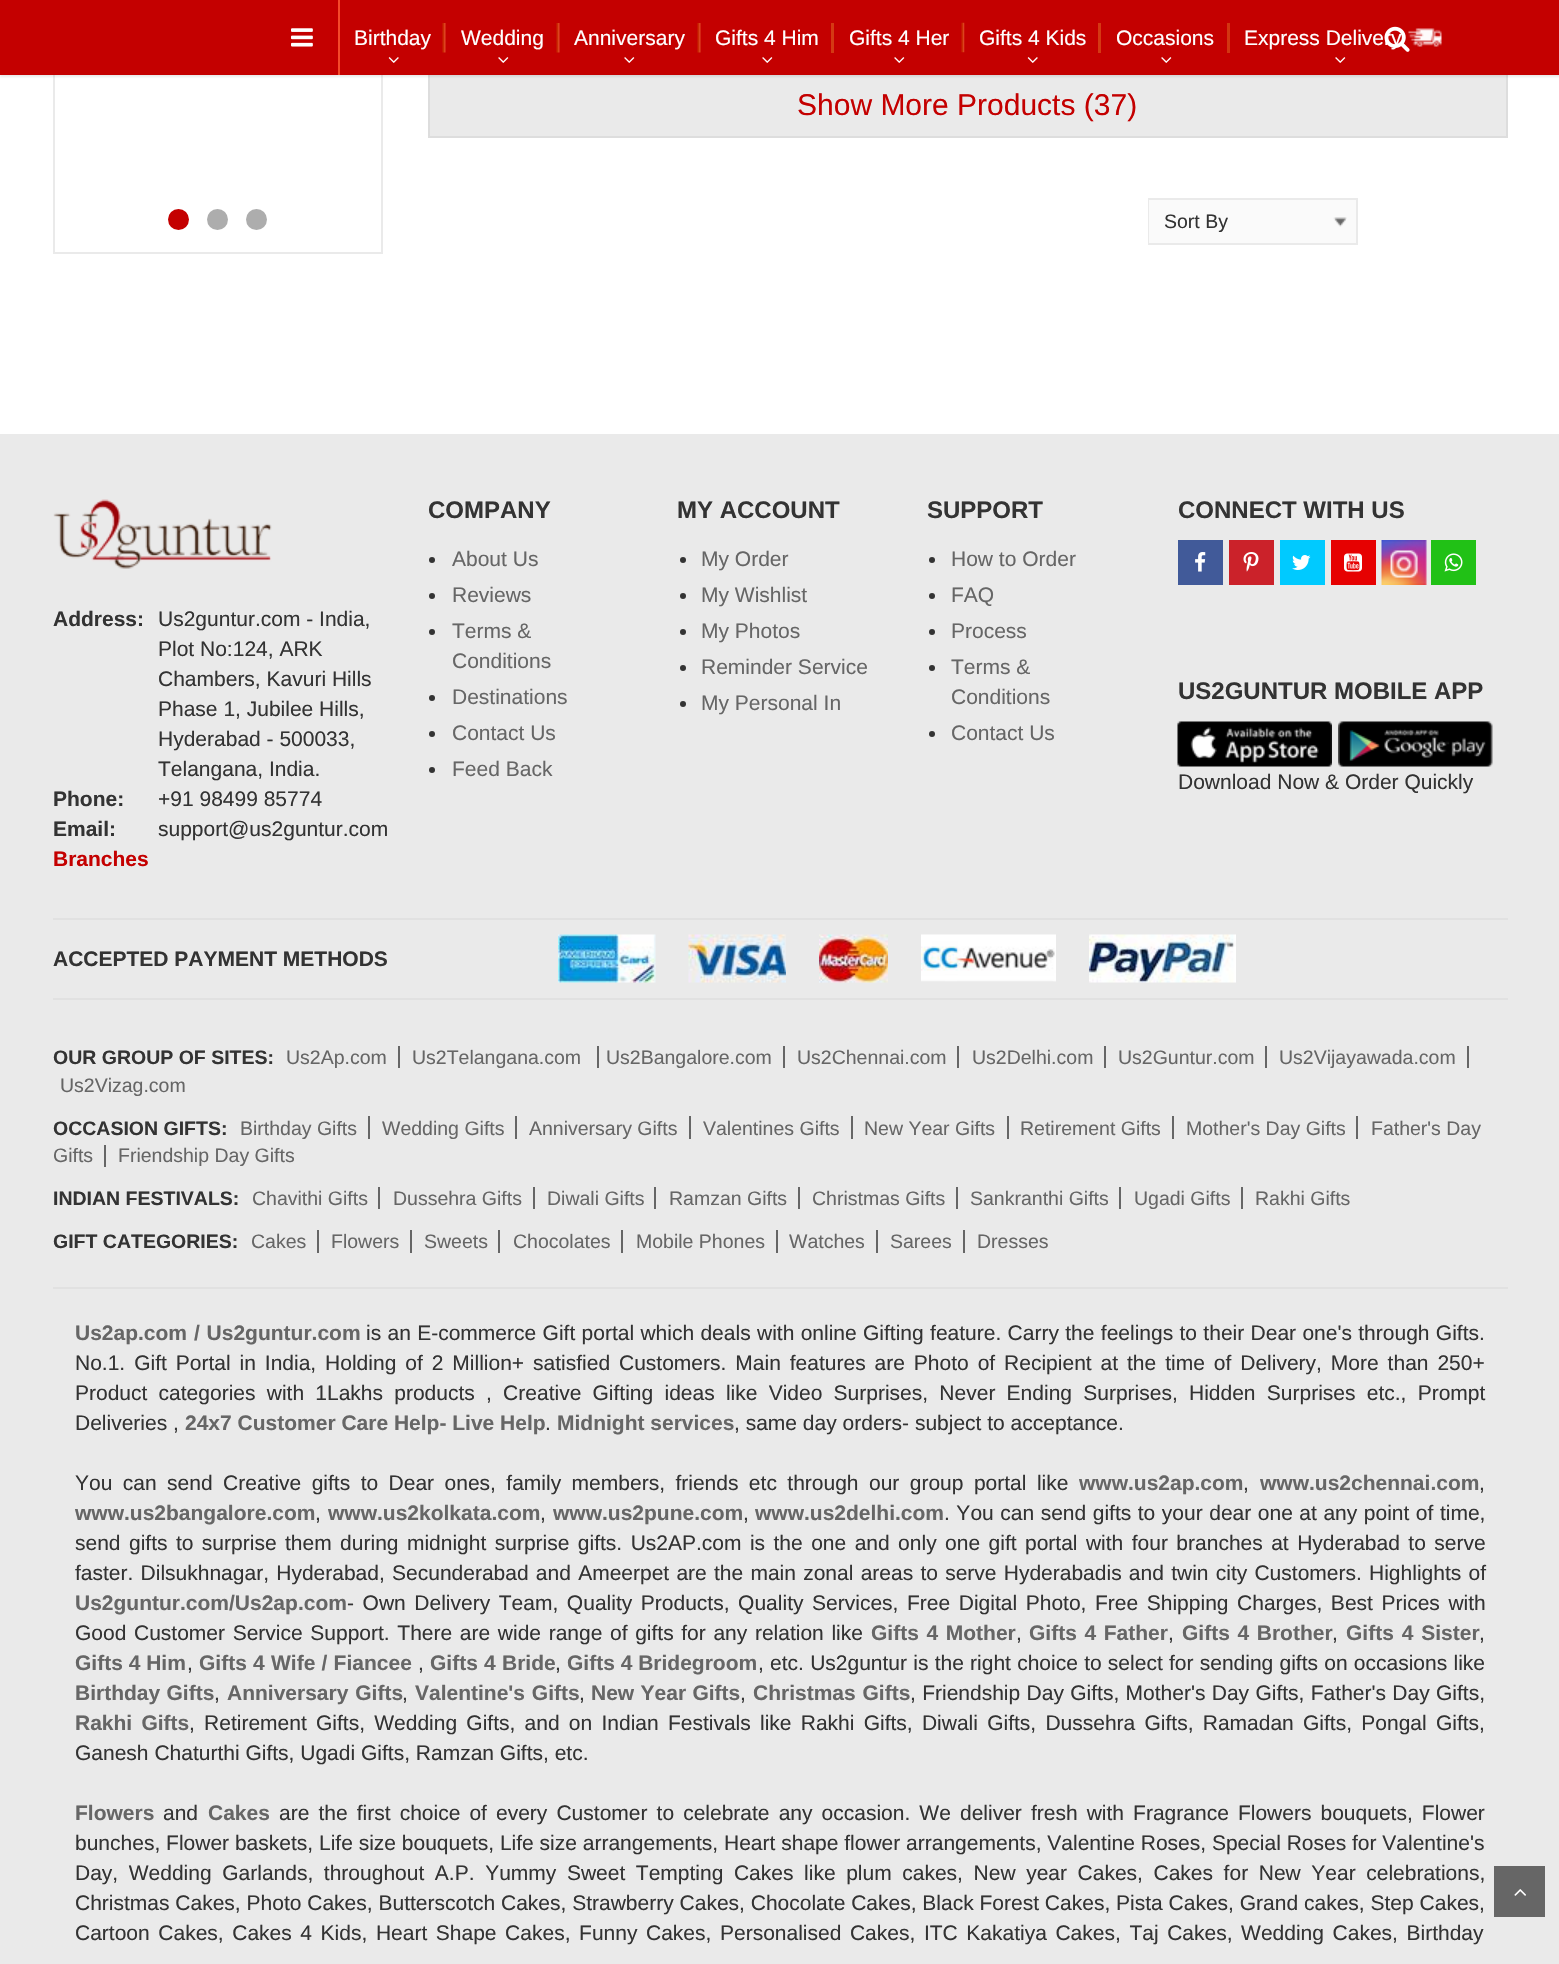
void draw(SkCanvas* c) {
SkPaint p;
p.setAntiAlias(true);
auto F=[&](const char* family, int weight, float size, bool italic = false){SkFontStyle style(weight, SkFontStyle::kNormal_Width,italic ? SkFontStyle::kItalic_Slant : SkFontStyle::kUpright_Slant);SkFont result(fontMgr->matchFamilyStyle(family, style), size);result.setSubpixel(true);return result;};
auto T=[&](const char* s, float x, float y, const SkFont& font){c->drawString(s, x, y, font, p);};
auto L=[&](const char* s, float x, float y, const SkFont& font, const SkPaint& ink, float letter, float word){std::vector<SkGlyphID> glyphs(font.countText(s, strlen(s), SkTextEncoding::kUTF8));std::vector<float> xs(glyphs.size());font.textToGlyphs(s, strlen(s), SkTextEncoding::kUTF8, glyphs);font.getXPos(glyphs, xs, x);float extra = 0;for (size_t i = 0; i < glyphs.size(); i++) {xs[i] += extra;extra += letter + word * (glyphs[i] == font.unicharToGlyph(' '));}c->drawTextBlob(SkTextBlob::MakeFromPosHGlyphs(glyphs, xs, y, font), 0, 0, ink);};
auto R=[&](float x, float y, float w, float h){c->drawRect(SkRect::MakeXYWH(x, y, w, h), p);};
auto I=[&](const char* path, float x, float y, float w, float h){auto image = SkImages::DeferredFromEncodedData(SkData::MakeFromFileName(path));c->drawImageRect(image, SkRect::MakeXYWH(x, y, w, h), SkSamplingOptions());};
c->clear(0xffffffff);
p.setStroke(true);
p.setStrokeWidth(2);
p.setColor(0xffeaeaea);
c->drawRect(SkRect::MakeXYWH(54,-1,328,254),p);
p.setStroke(false);
R(430,75,1076,61);
p.setStroke(true);
p.setColor(0xffdddddd);
c->drawRect(SkRect::MakeXYWH(429,73,1078,64),p);
p.setStroke(false);
p.setColor(0x1a323232);
p.setMaskFilter(SkMaskFilter::MakeBlur(kNormal_SkBlurStyle, 1));
c->drawRect(SkRect::MakeXYWH(0,2,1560,75),p);
p.setMaskFilter(nullptr);
p.setColor(0xffc40000);
R(0,0,1559,75);
auto f1 = F("Liberation Sans",400,21);
p.setColor(0xffffffff);
T("Express Delivery",1244,45,f1);
I("7.png",1408,28,34,19);
I("1.png",1384,26,26,26);
I("2.png",291,28,22,19);
p.setColor(0xfff44a2a);
R(338,0,2,75);
I("3.png",442,23,4,30);
p.setColor(0xffffffff);
T("Birthday",354,45,f1);
I("4.png",388,57,11,6);
I("3.png",556,23,4,30);
T("Wedding",461,45,f1);
I("5.png",498,57,11,6);
I("3.png",697,23,4,30);
T("Anniversary",574,45,f1);
I("5.png",624,57,11,6);
p.setColor(0xffd43913);
R(831,23,3,30);
p.setColor(0xffffffff);
T("Gifts 4 Him",715,45,f1);
I("5.png",762,57,11,6);
I("6.png",961,22,4,31);
T("Gifts 4 Her",849,45,f1);
I("5.png",894,57,11,6);
p.setColor(0xffd43913);
R(1098,23,3,30);
p.setColor(0xffffffff);
T("Gifts 4 Kids",979,45,f1);
I("4.png",1027,57,11,6);
p.setColor(0xffd23611);
R(1227,23,3,30);
p.setColor(0xffffffff);
T("Occasions",1116,45,f1);
I("5.png",1161,57,11,6);
I("5.png",1335,57,11,6);
p.setColor(0xffc40000);
c->drawCircle(178.5,219.5,10.5,p);
p.setColor(0xffadadad);
c->drawCircle(217.5,219.5,10.5,p);
c->drawCircle(256.5,219.5,10.5,p);
auto f2 = F("Liberation Sans",400,30);
p.setColor(0xffc40000);
T("Show More Products (37)",797,115,f2);
p.setStroke(true);
p.setColor(0xffeaeaea);
c->drawRect(SkRect::MakeXYWH(1149,199,208,45),p);
p.setStroke(false);
p.setColor(0xfffafafa);
R(1149,200,207,43);
I("8.png",1333,217,14,10);
auto f3 = F("Liberation Sans",400,19.5);
p.setColor(0xff333333);
T("Sort By",1164,228,f3);
p.setColor(0xffeaeaea);
R(0,434,1559,1530);
I("9.png",53,499,219,70);
auto f4 = F("Liberation Sans",700,21);
p.setColor(0xff333333);
T("Address:",53,626,f4);
T("Us2guntur.com - India,",158,626,f1);
T("Plot No:124, ARK",158,656,f1);
T("Chambers, Kavuri Hills",158,686,f1);
T("Phase 1, Jubilee Hills,",158,716,f1);
T("Hyderabad - 500033,",158,746,f1);
T("Telangana, India.",158,776,f1);
T("Phone:",53,806,f4);
T("+91 98499 85774",158,806,f1);
T("Email:",53,836,f4);
T("support@us2guntur.com",158,836,f1);
p.setColor(0xffc40000);
T("Branches",53,866,f4);
auto f5 = F("Liberation Sans",700,24);
p.setColor(0xff333333);
T("COMPANY",428,518,f5);
c->drawCircle(432,560,3,p);
p.setColor(0xff666666);
T("About Us",452,566,f1);
p.setColor(0xff333333);
c->drawCircle(432,596,3,p);
p.setColor(0xff666666);
T("Reviews",452,602,f1);
p.setColor(0xff333333);
c->drawCircle(432,632,3,p);
p.setColor(0xff666666);
T("Terms &",452,638,f1);
T("Conditions",452,668,f1);
p.setColor(0xff333333);
c->drawCircle(432,698,3,p);
p.setColor(0xff666666);
T("Destinations",452,704,f1);
p.setColor(0xff333333);
c->drawCircle(432,734,3,p);
p.setColor(0xff666666);
T("Contact Us",452,740,f1);
p.setColor(0xff333333);
c->drawCircle(432,770,3,p);
p.setColor(0xff666666);
T("Feed Back",452,776,f1);
p.setColor(0xff333333);
T("MY ACCOUNT",677,518,f5);
c->drawCircle(683,560,3,p);
p.setColor(0xff666666);
T("My Order",701,566,f1);
p.setColor(0xff333333);
c->drawCircle(683,596,3,p);
p.setColor(0xff666666);
T("My Wishlist",701,602,f1);
p.setColor(0xff333333);
c->drawCircle(683,632,3,p);
p.setColor(0xff666666);
T("My Photos",701,638,f1);
p.setColor(0xff333333);
c->drawCircle(683,668,3,p);
p.setColor(0xff666666);
T("Reminder Service",701,674,f1);
p.setColor(0xff333333);
c->drawCircle(683,704,3,p);
p.setColor(0xff666666);
T("My Personal In",701,710,f1);
p.setColor(0xff333333);
T("SUPPORT",927,518,f5);
c->drawCircle(932,560,3,p);
p.setColor(0xff666666);
T("How to Order",951,566,f1);
p.setColor(0xff333333);
c->drawCircle(932,596,3,p);
p.setColor(0xff666666);
T("FAQ",951,602,f1);
p.setColor(0xff333333);
c->drawCircle(932,632,3,p);
p.setColor(0xff666666);
T("Process",951,638,f1);
p.setColor(0xff333333);
c->drawCircle(932,668,3,p);
p.setColor(0xff666666);
T("Terms &",951,674,f1);
T("Conditions",951,704,f1);
p.setColor(0xff333333);
c->drawCircle(932,734,3,p);
p.setColor(0xff666666);
T("Contact Us",951,740,f1);
p.setColor(0xff333333);
T("CONNECT WITH US",1178,518,f5);
p.setColor(0xff415a99);
R(1178,540,45,45);
I("10.png",1195,552,11,20);
p.setColor(0xffcb222a);
R(1229,540,45,45);
I("11.png",1243,552,16,20);
p.setColor(0xff00caff);
R(1280,540,45,45);
I("12.png",1292,555,19,15);
p.setColor(0xffe60101);
R(1331,540,45,45);
I("13.png",1344,553,18,19);
I("14.png",1381,540,46,45);
p.setColor(0xff21c116);
R(1431,540,45,45);
I("15.png",1444,553,19,19);
p.setColor(0xff333333);
T("US2GUNTUR MOBILE APP",1178,699,f5);
I("16.png",1177,721,155,46);
I("17.png",1338,721,155,46);
T("Download Now & Order Quickly",1178,789,f1);
p.setColor(0xffe1e1e1);
R(53,918,1455,2);
R(53,998,1455,2);
p.setColor(0xff333333);
T("ACCEPTED PAYMENT METHODS",53,966,f4);
I("18.png",558,934,98,49);
I("19.png",688,934,98,49);
I("20.png",819,934,69,49);
I("21.png",921,934,135,48);
I("22.png",1089,934,147,49);
auto f6 = F("Liberation Sans",700,19.5);
T("OUR GROUP OF SITES:",53,1064,f6);
p.setColor(0xff666666);
T("Us2Ap.com",286,1064,f3);
R(398,1046,2,22);
T("Us2Telangana.com",412,1064,f3);
R(597,1046,2,22);
T("Us2Bangalore.com",606,1064,f3);
R(783,1046,2,22);
T("Us2Chennai.com",797,1064,f3);
R(957,1046,2,22);
T("Us2Delhi.com",972,1064,f3);
R(1104,1046,2,22);
T("Us2Guntur.com",1118,1064,f3);
R(1265,1046,2,22);
T("Us2Vijayawada.com",1279,1064,f3);
R(1467,1046,2,22);
T("Us2Vizag.com",60,1092,f3);
p.setColor(0xff333333);
T("OCCASION GIFTS:",53,1135,f6);
p.setColor(0xff666666);
T("Birthday Gifts",240,1135,f3);
R(368,1116,2,23);
T("Wedding Gifts",382,1135,f3);
R(515,1116,2,23);
T("Anniversary Gifts",529,1135,f3);
R(689,1116,2,23);
T("Valentines Gifts",703,1135,f3);
R(851,1116,2,23);
T("New Year Gifts",864,1135,f3);
R(1007,1116,2,23);
T("Retirement Gifts",1020,1135,f3);
R(1172,1116,2,23);
T("Mother's Day Gifts",1186,1135,f3);
R(1356,1116,2,23);
T("Father's Day",1371,1135,f3);
T("Gifts",53,1162,f3);
R(104,1145,2,22);
T("Friendship Day Gifts",118,1162,f3);
p.setColor(0xff333333);
T("INDIAN FESTIVALS:",53,1205,f6);
p.setColor(0xff666666);
T("Chavithi Gifts",252,1205,f3);
R(378,1187,2,22);
T("Dussehra Gifts",393,1205,f3);
R(533,1187,2,22);
T("Diwali Gifts",547,1205,f3);
R(654,1187,2,22);
T("Ramzan Gifts",669,1205,f3);
R(798,1187,2,22);
T("Christmas Gifts",812,1205,f3);
R(956,1187,2,22);
T("Sankranthi Gifts",970,1205,f3);
R(1119,1187,2,22);
T("Ugadi Gifts",1134,1205,f3);
R(1241,1187,2,22);
T("Rakhi Gifts",1255,1205,f3);
p.setColor(0xff333333);
T("GIFT CATEGORIES:",53,1248,f6);
p.setColor(0xff666666);
T("Cakes",251,1248,f3);
R(317,1230,2,23);
T("Flowers",331,1248,f3);
R(410,1230,2,23);
T("Sweets",424,1248,f3);
R(498,1230,2,23);
T("Chocolates",513,1248,f3);
R(621,1230,2,23);
T("Mobile Phones",636,1248,f3);
R(776,1230,2,23);
T("Watches",789,1248,f3);
R(876,1230,2,23);
T("Sarees",890,1248,f3);
R(963,1230,2,23);
T("Dresses",977,1248,f3);
p.setColor(0xffe1e1e1);
R(53,1287,1455,2);
p.setColor(0xff666666);
L("Us2ap.com / Us2guntur.com",75,1340,f4,p,0,1);
p.setColor(0xff333333);
L("is an E-commerce Gift portal which deals with online Gifting feature. Carry the feelings to their Dear one's through Gifts.",366,1340,f1,p,0,.5);
L("No.1. Gift Portal in India, Holding of 2 Million+ satisfied Customers. Main features are Photo of Recipient at the time of Delivery, More than 250+",75,1370,f1,p,0,3.1);
L("Product categories with 1Lakhs products , Creative Gifting ideas like Video Surprises, Never Ending Surprises, Hidden Surprises etc., Prompt",75,1400,f1,p,0,5.4);
T("Deliveries ,",75,1430,f1);
p.setColor(0xff666666);
T("24x7 Customer Care Help- Live Help",185,1430,f4);
p.setColor(0xff333333);
T(".",545,1430,f1);
p.setColor(0xff666666);
T("Midnight services",557,1430,f4);
p.setColor(0xff333333);
T(", same day orders- subject to acceptance.",734,1430,f1);
L("You can send Creative gifts to Dear ones, family members, friends etc through our group portal like",75,1490,f1,p,0,4.6);
p.setColor(0xff666666);
T("www.us2ap.com",1079,1490,f4);
p.setColor(0xff333333);
T(",",1243,1490,f1);
p.setColor(0xff666666);
T("www.us2chennai.com",1260,1490,f4);
p.setColor(0xff333333);
T(",",1479,1490,f1);
p.setColor(0xff666666);
T("www.us2bangalore.com",75,1520,f4);
p.setColor(0xff333333);
T(",",315,1520,f1);
p.setColor(0xff666666);
T("www.us2kolkata.com",328,1520,f4);
p.setColor(0xff333333);
T(",",540,1520,f1);
p.setColor(0xff666666);
T("www.us2pune.com",553,1520,f4);
p.setColor(0xff333333);
T(",",743,1520,f1);
p.setColor(0xff666666);
T("www.us2delhi.com",755,1520,f4);
p.setColor(0xff333333);
L(". You can send gifts to your dear one at any point of time,",944,1520,f1,p,0,.7);
L("send gifts to surprise them during midnight surprise gifts. Us2AP.com is the one and only one gift portal with four branches at Hyderabad to serve",75,1550,f1,p,0,2.6);
L("faster. Dilsukhnagar, Hyderabad, Secunderabad and Ameerpet are the main zonal areas to serve Hyderabadis and twin city Customers. Highlights of",75,1580,f1,p,0,1.4);
p.setColor(0xff666666);
T("Us2guntur.com/Us2ap.com",75,1610,f4);
p.setColor(0xff333333);
L("- Own Delivery Team, Quality Products, Quality Services, Free Digital Photo, Free Shipping Charges, Best Prices with",347,1610,f1,p,0,2.75);
L("Good Customer Service Support. There are wide range of gifts for any relation like",75,1640,f1,p,0,1.8);
p.setColor(0xff666666);
L("Gifts 4 Mother",871,1640,f4,p,0,1.8);
p.setColor(0xff333333);
T(",",1016,1640,f1);
p.setColor(0xff666666);
L("Gifts 4 Father",1029,1640,f4,p,0,1.8);
p.setColor(0xff333333);
T(",",1168,1640,f1);
p.setColor(0xff666666);
L("Gifts 4 Brother",1182,1640,f4,p,0,1.8);
p.setColor(0xff333333);
T(",",1332,1640,f1);
p.setColor(0xff666666);
L("Gifts 4 Sister",1346,1640,f4,p,0,2);
p.setColor(0xff333333);
T(",",1479,1640,f1);
p.setColor(0xff666666);
T("Gifts 4 Him",75,1670,f4);
p.setColor(0xff333333);
T(",",187,1670,f1);
p.setColor(0xff666666);
L("Gifts 4 Wife / Fiancee",199,1670,f4,p,0,.4);
p.setColor(0xff333333);
T(",",418,1670,f1);
p.setColor(0xff666666);
L("Gifts 4 Bride",430,1670,f4,p,0,.4);
p.setColor(0xff333333);
T(",",555,1670,f1);
p.setColor(0xff666666);
T("Gifts 4 Bridegroom",567,1670,f4);
p.setColor(0xff333333);
L(", etc. Us2guntur is the right choice to select for sending gifts on occasions like",758,1670,f1,p,0,.4);
p.setColor(0xff666666);
L("Birthday Gifts",75,1700,f4,p,0,.5);
p.setColor(0xff333333);
T(",",214,1700,f1);
p.setColor(0xff666666);
L("Anniversary Gifts",227,1700,f4,p,0,1);
p.setColor(0xff333333);
T(",",402,1700,f1);
p.setColor(0xff666666);
L("Valentine's Gifts",415,1700,f4,p,0,1);
p.setColor(0xff333333);
T(",",579,1700,f1);
p.setColor(0xff666666);
L("New Year Gifts",591,1700,f4,p,0,.5);
p.setColor(0xff333333);
T(",",740,1700,f1);
p.setColor(0xff666666);
L("Christmas Gifts",753,1700,f4,p,0,1);
p.setColor(0xff333333);
L(", Friendship Day Gifts, Mother's Day Gifts, Father's Day Gifts,",910,1700,f1,p,0,.5);
p.setColor(0xff666666);
L("Rakhi Gifts",75,1730,f4,p,0,3.4);
p.setColor(0xff333333);
L(", Retirement Gifts, Wedding Gifts, and on Indian Festivals like Rakhi Gifts, Diwali Gifts, Dussehra Gifts, Ramadan Gifts, Pongal Gifts,",189,1730,f1,p,0,3.4);
T("Ganesh Chaturthi Gifts, Ugadi Gifts, Ramzan Gifts, etc.",75,1760,f1);
p.setColor(0xff666666);
T("Flowers",75,1820,f4);
p.setColor(0xff333333);
T("and",163,1820,f1);
p.setColor(0xff666666);
T("Cakes",208,1820,f4);
p.setColor(0xff333333);
L("are the first choice of every Customer to celebrate any occasion. We deliver fresh with Fragrance Flowers bouquets, Flower",279,1820,f1,p,0,3.25);
T("bunches, Flower baskets, Life size bouquets, Life size arrangements, Heart shape flower arrangements, Valentine Roses, Special Roses for Valentine's",75,1850,f1);
L("Day, Wedding Garlands, throughout A.P. Yummy Sweet Tempting Cakes like plum cakes, New year Cakes, Cakes for New Year celebrations,",75,1880,f1,p,0,4.75);
T("Christmas Cakes, Photo Cakes, Butterscotch Cakes, Strawberry Cakes, Chocolate Cakes, Black Forest Cakes, Pista Cakes, Grand cakes, Step Cakes,",75,1910,f1);
L("Cartoon Cakes, Cakes 4 Kids, Heart Shape Cakes, Funny Cakes, Personalised Cakes, ITC Kakatiya Cakes, Taj Cakes, Wedding Cakes, Birthday",75,1940,f1,p,0,2.75);
p.setColor(0xff666666);
R(1494,1866,51,51);
I("23.png",1514,1889,12,7);
}
